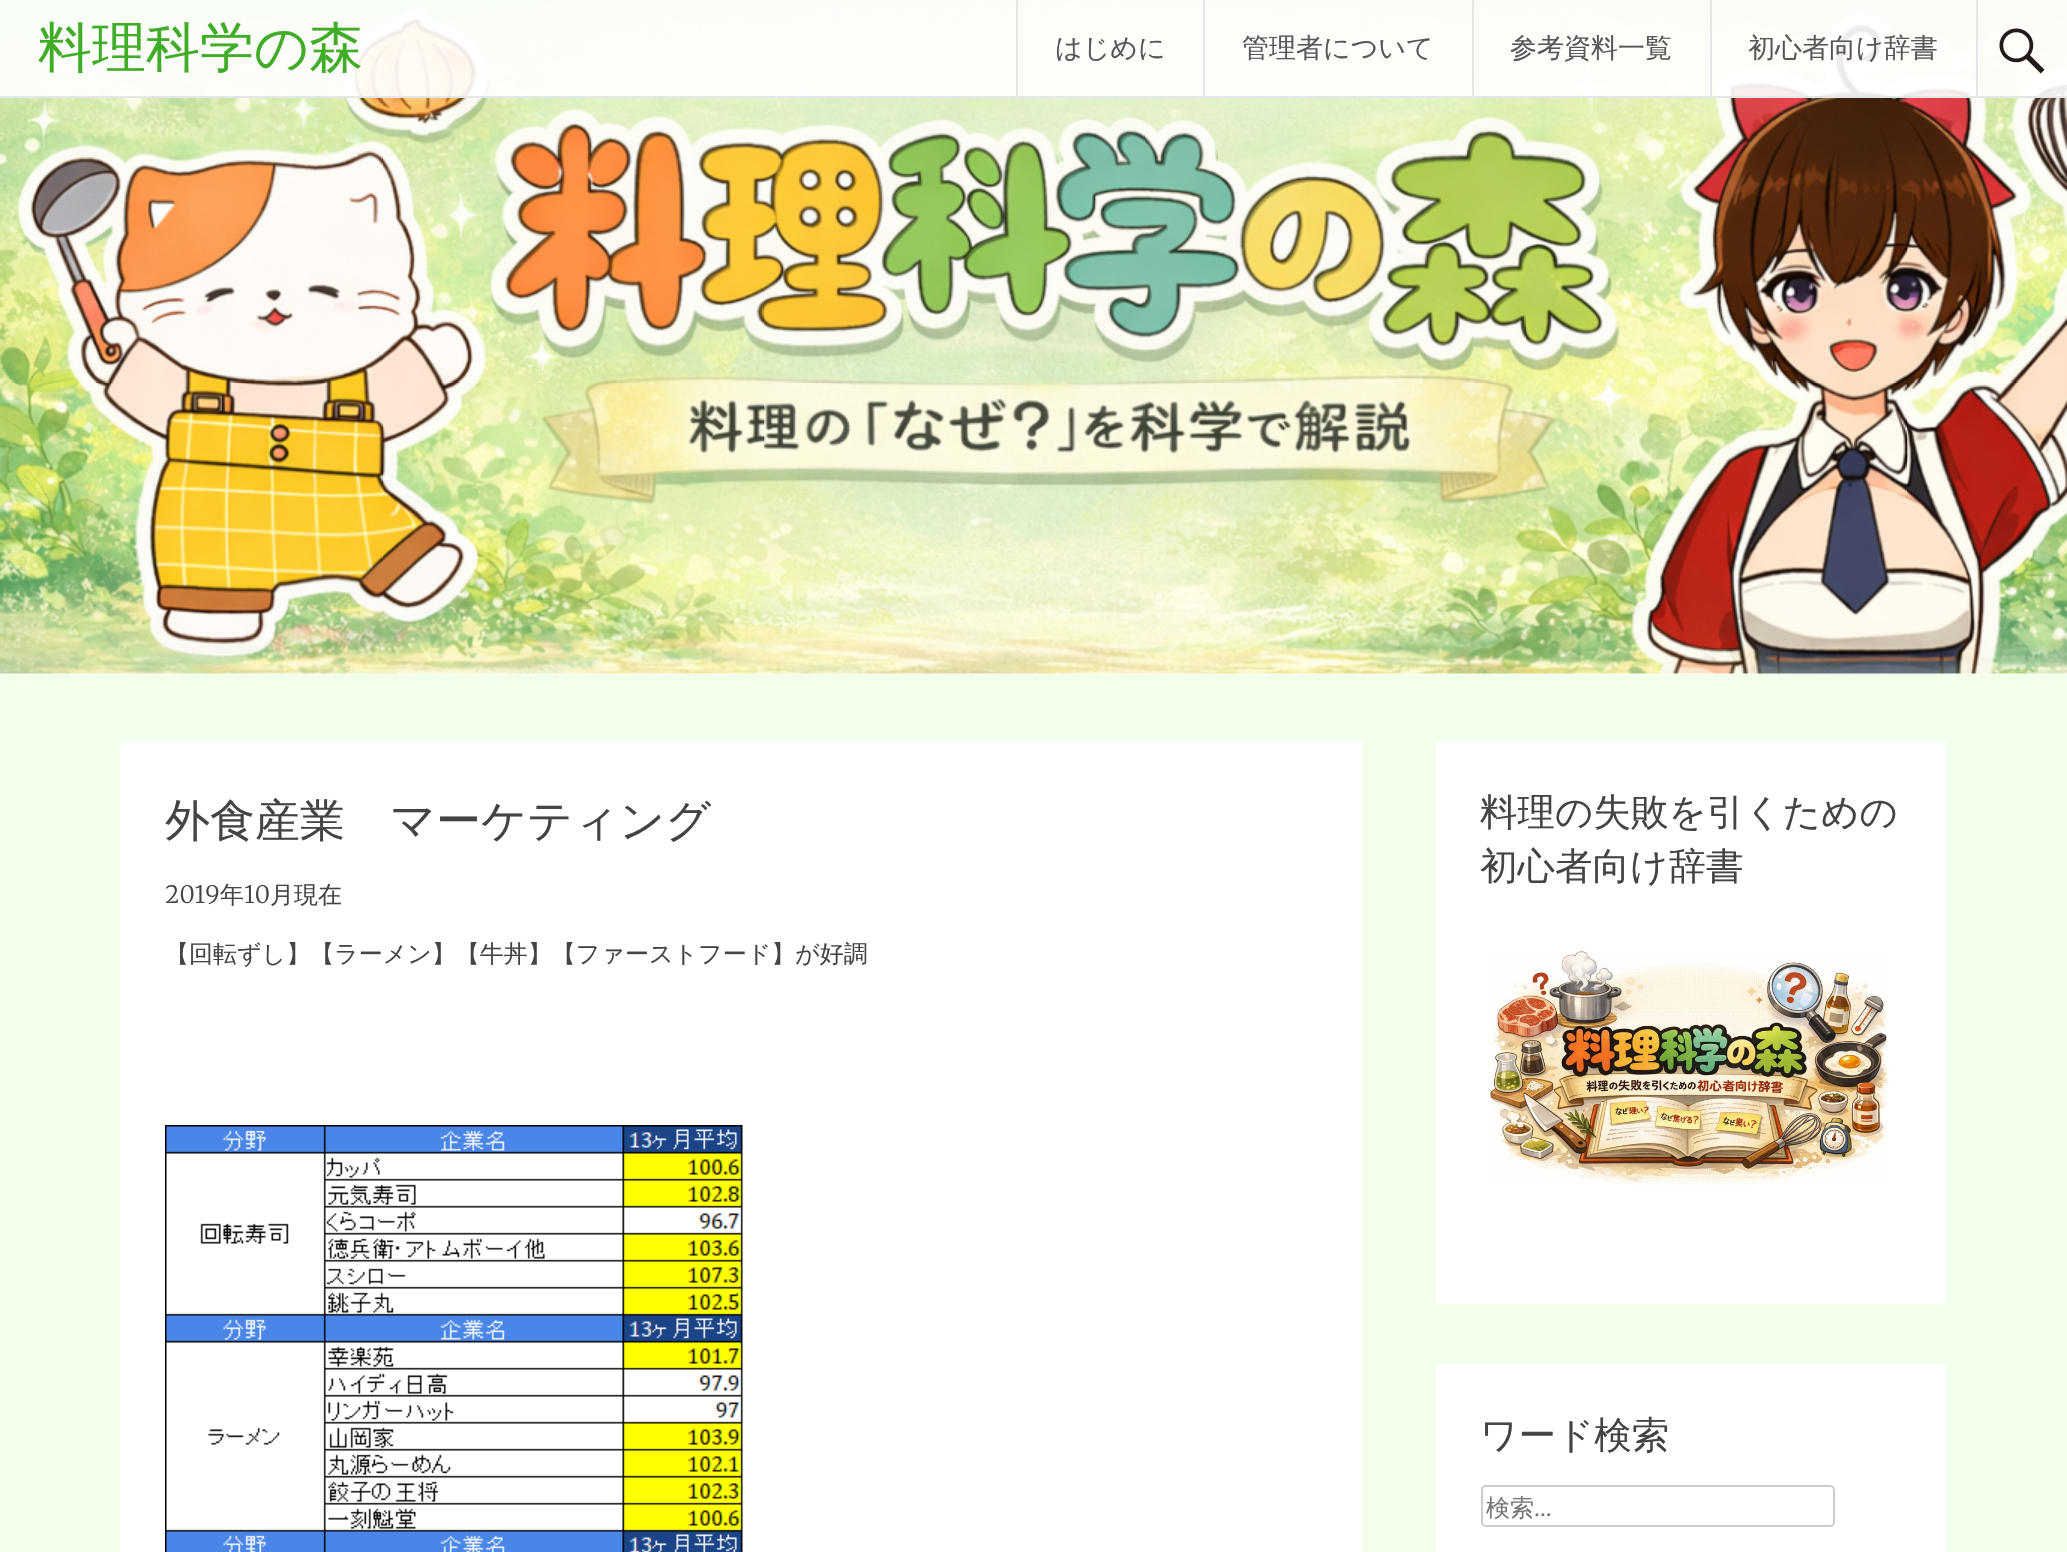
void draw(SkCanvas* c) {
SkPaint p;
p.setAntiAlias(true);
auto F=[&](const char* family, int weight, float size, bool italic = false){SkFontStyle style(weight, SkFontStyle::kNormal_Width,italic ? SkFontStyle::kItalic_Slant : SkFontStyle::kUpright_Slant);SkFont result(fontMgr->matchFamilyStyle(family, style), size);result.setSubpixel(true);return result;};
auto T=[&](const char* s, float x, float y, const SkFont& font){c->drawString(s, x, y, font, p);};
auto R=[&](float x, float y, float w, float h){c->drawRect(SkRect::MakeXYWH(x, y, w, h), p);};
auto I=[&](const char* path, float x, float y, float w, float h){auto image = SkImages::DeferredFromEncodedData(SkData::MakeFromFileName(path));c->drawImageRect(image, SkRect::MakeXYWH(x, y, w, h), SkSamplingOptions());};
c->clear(0xffffffff);
I("1.png",0,0,2067,674);
p.setColor(0xe6ffffff);
R(0,0,2067,98);
p.setColor(0xe6e1e4e6);
R(0,96,2067,2);
auto f1 = F("WenQuanYi Zen Hei",500,54);
p.setColor(0xff40ac27);
T("料理科学の森",38,66,f1);
p.setColor(0xffe4e7e8);
R(1016,0,2,96);
auto f2 = F("WenQuanYi Zen Hei",500,27);
p.setColor(0xff565756);
T("はじめに",1055,57,f2);
p.setColor(0xe6e1e4e6);
R(1203,0,2,96);
p.setColor(0xff565756);
T("管理者について",1242,57,f2);
p.setColor(0xffe4e7e8);
R(1472,0,2,96);
p.setColor(0xff565756);
T("参考資料一覧",1510,57,f2);
p.setColor(0xffe4e7e8);
R(1710,0,2,96);
p.setColor(0xff565756);
T("初心者向け辞書",1748,57,f2);
p.setColor(0xe6e1e4e6);
R(1976,0,2,96);
I("2.png",1999,28,46,46);
p.setColor(0xfff2ffea);
R(0,674,2067,878);
p.setColor(0xffffffff);
R(120,741,1242,811);
auto f3 = F("WenQuanYi Zen Hei",500,45);
p.setColor(0xff444444);
T("外食産業　マーケティング",165,836,f3);
auto f4 = F("Merriweather",300,24);
T("2019",165,903,f4);
auto f5 = F("WenQuanYi Zen Hei",500,24);
T("年",220,903,f5);
T("10",244,903,f4);
T("月現在",270,903,f5);
T("【回転ずし】【ラーメン】【牛丼】【ファーストフード】が好調",165,962,f5);
I("3.png",165,1125,578,427);
p.setColor(0xffffffff);
R(1436,741,511,563);
auto f6 = F("WenQuanYi Zen Hei",500,37.5);
p.setColor(0xff444444);
T("料理の失敗を引くための",1480,825,f6);
T("初心者向け辞書",1480,879,f6);
I("4.png",1489,950,400,236);
p.setColor(0xffffffff);
R(1436,1364,511,188);
p.setColor(0xff444444);
T("ワード検索",1480,1448,f6);
p.setStroke(true);
p.setStrokeWidth(2);
p.setColor(0xffcccccc);
c->drawRoundRect(SkRect::MakeXYWH(1482,1486,352,40),4,4,p);
p.setStroke(false);
p.setColor(0xff757575);
T("検索",1486,1516,f5);
T("…",1534,1516,f4);
}
